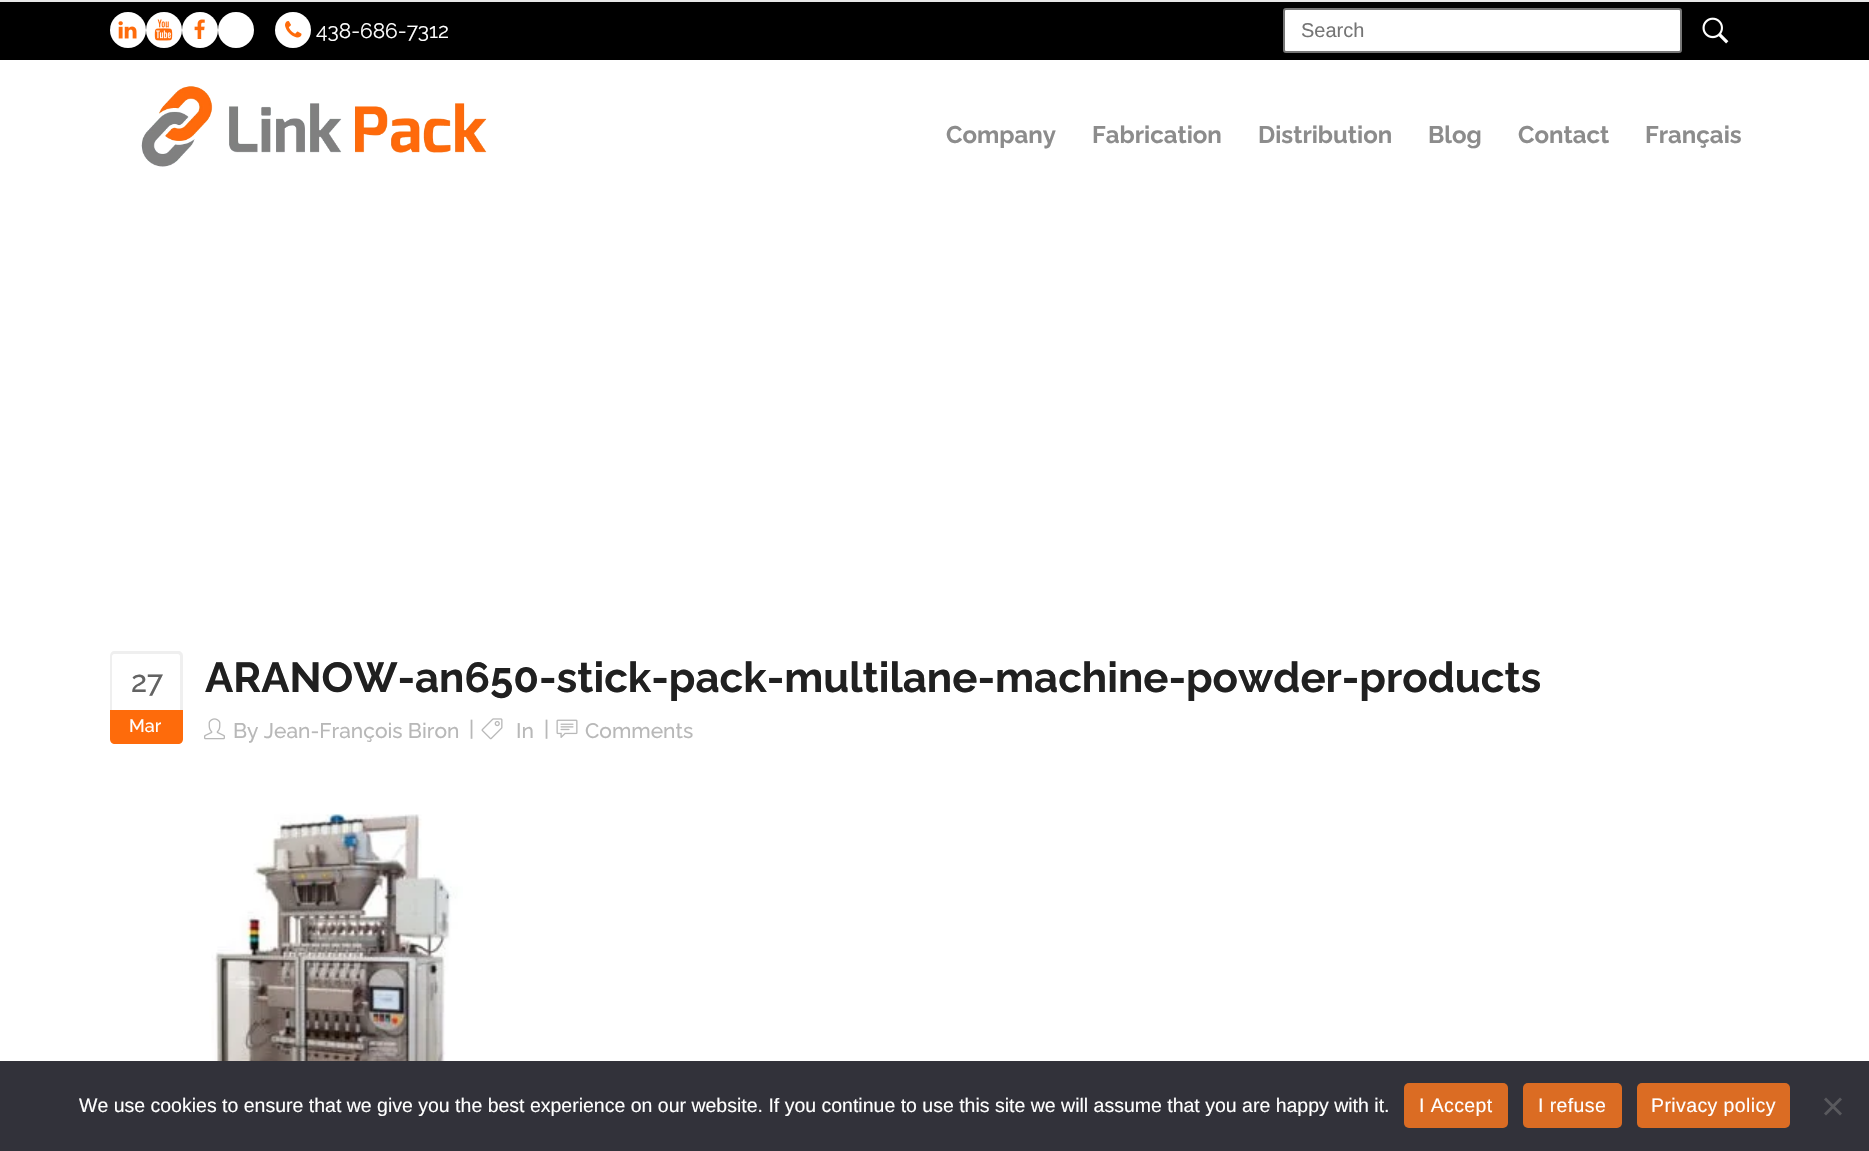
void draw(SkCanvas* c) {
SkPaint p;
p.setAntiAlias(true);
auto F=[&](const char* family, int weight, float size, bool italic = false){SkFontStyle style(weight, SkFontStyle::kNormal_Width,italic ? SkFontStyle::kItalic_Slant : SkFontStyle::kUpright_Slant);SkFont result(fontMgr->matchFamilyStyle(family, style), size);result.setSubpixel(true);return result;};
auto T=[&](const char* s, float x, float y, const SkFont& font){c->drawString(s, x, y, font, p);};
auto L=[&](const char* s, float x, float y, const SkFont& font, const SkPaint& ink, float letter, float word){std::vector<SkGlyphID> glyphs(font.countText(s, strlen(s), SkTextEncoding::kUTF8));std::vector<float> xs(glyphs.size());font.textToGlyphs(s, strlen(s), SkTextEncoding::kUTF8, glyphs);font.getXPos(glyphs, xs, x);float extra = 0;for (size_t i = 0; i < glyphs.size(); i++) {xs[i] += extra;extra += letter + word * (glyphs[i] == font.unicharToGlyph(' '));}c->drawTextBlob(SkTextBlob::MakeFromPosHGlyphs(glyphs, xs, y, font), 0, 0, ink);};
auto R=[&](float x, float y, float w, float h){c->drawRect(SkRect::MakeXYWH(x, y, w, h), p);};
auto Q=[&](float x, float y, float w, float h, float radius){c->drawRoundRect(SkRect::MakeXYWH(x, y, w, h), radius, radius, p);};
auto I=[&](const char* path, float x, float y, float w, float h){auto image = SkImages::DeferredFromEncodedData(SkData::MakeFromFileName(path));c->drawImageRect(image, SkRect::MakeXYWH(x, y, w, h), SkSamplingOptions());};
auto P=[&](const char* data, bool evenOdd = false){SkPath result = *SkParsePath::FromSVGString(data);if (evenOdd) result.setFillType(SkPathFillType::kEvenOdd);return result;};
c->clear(0xffffffff);
p.setColor(0xff000000);
R(0,2,1869,58);
p.setColor(0xffffffff);
c->drawCircle(128,30,18,p);
I("1.png",118,21,19,18);
c->drawCircle(164,30,18,p);
I("2.png",154,19,19,22);
c->drawCircle(200,30,18,p);
I("3.png",194,19,11,20);
c->drawCircle(236,30,18,p);
c->drawCircle(293,30,18,p);
I("4.png",285,21,17,17);
auto f1 = F("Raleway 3",100,21);
T("438-686-7312",316,38,f1);
c->drawRoundRect(SkRect::MakeXYWH(1284,9,397,43),2,2,p);
p.setStroke(true);
p.setStrokeWidth(2);
p.setColor(0xff767676);
c->drawRoundRect(SkRect::MakeXYWH(1284,9,397,43),2,2,p);
auto f2 = F("Liberation Sans",400,20);
p.setStroke(false);
p.setColor(0xff757575);
T("Search",1301,37,f2);
I("5.png",1702,17,27,27);
p.setColor(0xffe7e7e7);
R(0,0,1869,2);
I("6.png",141,86,346,81);
auto f3 = F("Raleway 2",100,24);
p.setColor(0xff8c8c8c);
T("Company",946,143,f3);
T("Fabrication",1092,143,f3);
T("Distribution",1258,143,f3);
T("Blog",1428,143,f3);
T("Contact",1518,143,f3);
T("Français",1645,143,f3);
p.setColor(0xffefefef);
c->drawPath(P("M114 651h64c3 0 5 2 5 5v54h-73v-54c0-3 2-5 4-5zm0 3h64c1 0 2 1 2 2v54h-68v-54c0-1 1-2 2-2z",true),p);
auto f4 = F("Raleway",100,30);
p.setColor(0xff636363);
T("27",131,692,f4);
p.setColor(0xfffe6b0b);
c->drawPath(P("M110 710h73v29c0 3-2 5-5 5h-63c-3 0-5-2-5-5z"),p);
auto f5 = F("Raleway",100,18);
p.setColor(0xffffffff);
T("Mar",129,732,f5);
auto f6 = F("Raleway 2",100,42);
p.setColor(0xff202020);
T("ARANOW-an650-stick-pack-multilane-machine-powder-products",205,692,f6);
I("7.png",204,718,21,22);
auto f7 = F("Raleway",100,21);
p.setColor(0xffb8b8b8);
T("By Jean-François Biron",233,738,f7);
T("|",469,736,f7);
I("8.png",481,718,22,22);
T("In",516,738,f7);
T("|",544,736,f7);
I("9.png",556,719,22,19);
T("Comments",585,738,f7);
I("10.png",209,813,254,248);
p.setColor(0xff32323a);
R(0,1061,1869,90);
auto f8 = F("Liberation Sans",400,19.5);
p.setColor(0xffffffff);
T("We use cookies to ensure that we give you the best experience on our website. If you continue to use this site we will assume that you are happy with it.",79,1112,f8);
p.setColor(0xffdb6c23);
Q(1404,1083,104,45,5);
p.setColor(0xffffffff);
L("I Accept",1419,1112,f8,p,.4,0);
p.setColor(0xffdb6c23);
Q(1523,1083,99,45,5);
p.setColor(0xffffffff);
L("I refuse",1538,1112,f8,p,.4,0);
p.setColor(0xffdb6c23);
Q(1637,1083,153,45,5);
p.setColor(0xffffffff);
L("Privacy policy",1651,1112,f8,p,.4,0);
p.setColor(0xff59595d);
c->drawPath(P("M1840 1097.5l2 2l-16 16l-2-2z"),p);
c->drawPath(P("M1824 1099.5l2-2l16 16l-2 2z"),p);
}
